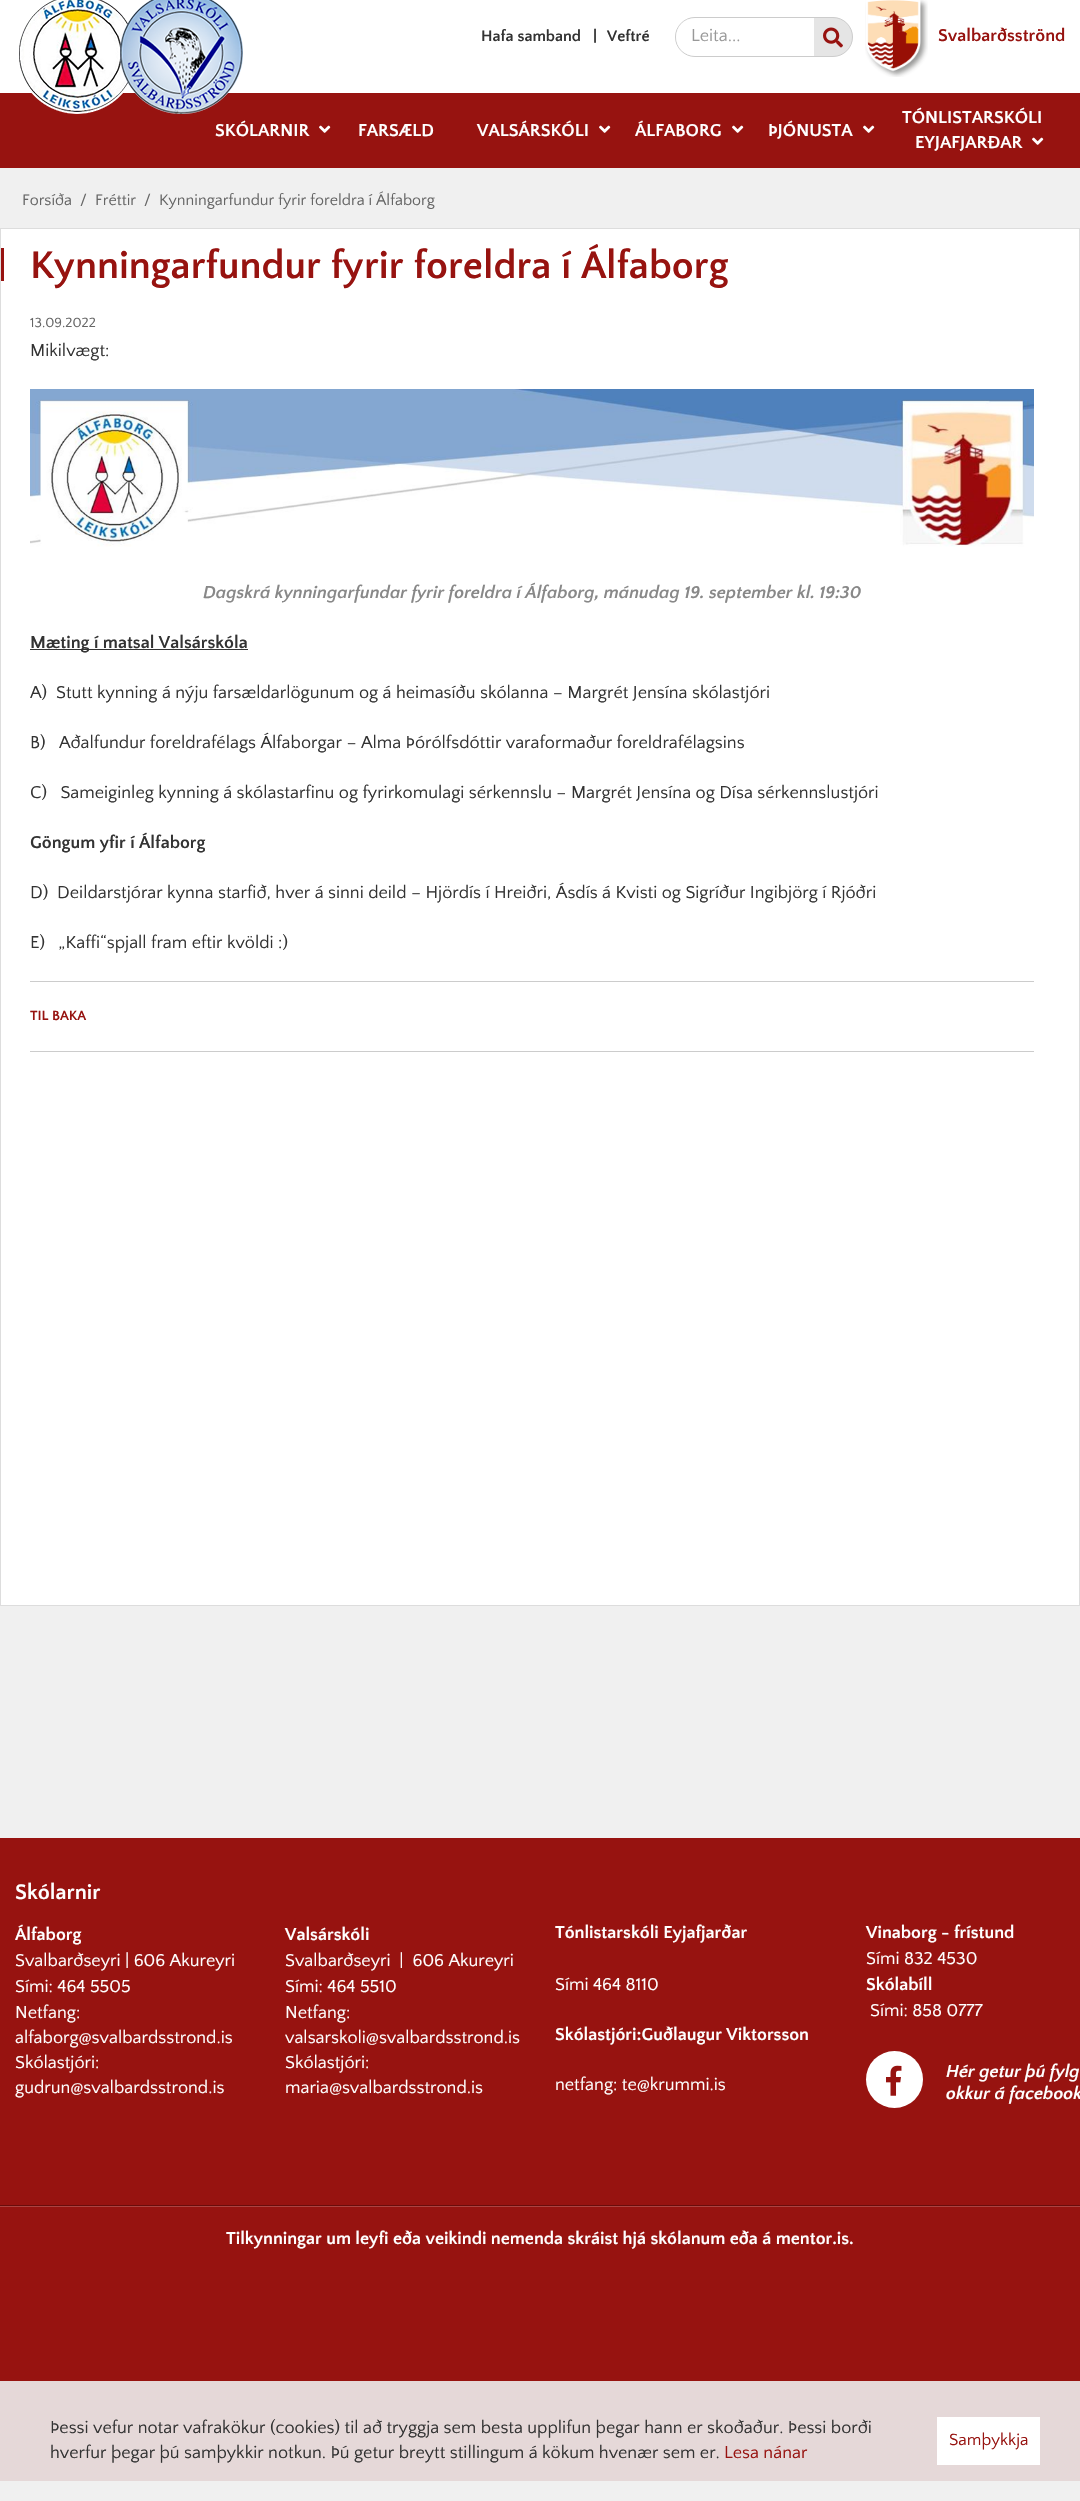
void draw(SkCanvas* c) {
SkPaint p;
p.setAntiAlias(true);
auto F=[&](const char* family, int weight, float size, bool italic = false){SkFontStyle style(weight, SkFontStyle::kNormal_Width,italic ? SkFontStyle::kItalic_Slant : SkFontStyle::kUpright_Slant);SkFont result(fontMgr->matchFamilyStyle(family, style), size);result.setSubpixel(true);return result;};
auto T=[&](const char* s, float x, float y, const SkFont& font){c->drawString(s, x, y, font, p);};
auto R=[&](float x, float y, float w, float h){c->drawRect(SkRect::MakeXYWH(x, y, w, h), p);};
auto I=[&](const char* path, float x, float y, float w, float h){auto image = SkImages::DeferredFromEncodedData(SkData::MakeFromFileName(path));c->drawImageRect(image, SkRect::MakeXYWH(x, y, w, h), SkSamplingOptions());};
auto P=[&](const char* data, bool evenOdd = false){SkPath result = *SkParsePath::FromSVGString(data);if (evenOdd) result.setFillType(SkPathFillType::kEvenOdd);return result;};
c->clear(0xfff0f0f0);
p.setColor(0xffffffff);
R(0,0,1080,93);
p.setColor(0xff971310);
R(0,93,1080,75);
I("1.png",19,0,224,114);
auto f1 = F("Quattrocento Sans",700,16);
p.setColor(0xff333333);
T("Hafa samband",481,41,f1);
T("|",593,41,f1);
T("Veftré",607,41,f1);
p.setColor(0xffe5e5e5);
c->drawRoundRect(SkRect::MakeXYWH(675.5,17.5,177,39),19.5,19.5,p);
p.setStroke(true);
p.setStrokeWidth(1);
p.setColor(0xffcccccc);
c->drawRoundRect(SkRect::MakeXYWH(675.5,17.5,177,39),19.5,19.5,p);
p.setStroke(false);
p.setColor(0xffffffff);
c->drawPath(P("M695 18h119v38h-119c-10.5 0-19-8.5-19-19c0-10.5 8.5-19 19-19z"),p);
auto f2 = F("Quattrocento Sans",400,18);
p.setColor(0xff999999);
T("Leita...",691,41,f2);
I("2.png",823,27,20,21);
I("3.png",865,0,63,77);
auto f3 = F("Quattrocento Sans",700,18);
p.setColor(0xff971310);
T("Svalbarðsströnd",938,41,f3);
p.setColor(0xffffffff);
T("SKÓLARNIR",215,136,f3);
I("4.png",319,125,12,8);
T("FARSÆLD",358,136,f3);
T("VALSÁRSKÓLI",477,136,f3);
I("4.png",599,125,12,8);
T("ÁLFABORG",635,136,f3);
I("4.png",732,125,12,8);
T("ÞJÓNUSTA",768,136,f3);
I("4.png",863,125,12,8);
T("TÓNLISTARSKÓLI",902,123,f3);
T("EYJAFJARÐAR",915,148,f3);
I("4.png",1032,137,12,8);
auto f4 = F("Quattrocento Sans",400,16);
p.setColor(0xff666666);
T("Forsíða",22,205,f4);
T("/",80,205,f4);
T("Fréttir",95,205,f4);
T("/",144,205,f4);
T("Kynningarfundur fyrir foreldra í Álfaborg",159,205,f4);
p.setColor(0xffffffff);
c->drawRect(SkRect::MakeXYWH(.5,228.5,1079,1377),p);
p.setStroke(true);
p.setColor(0xffdddddd);
c->drawRect(SkRect::MakeXYWH(.5,228.5,1079,1377),p);
p.setStroke(false);
p.setColor(0xff971310);
R(1,248,3,33);
auto f5 = F("Quattrocento Sans",700,40);
T("Kynningarfundur fyrir foreldra í Álfaborg",30,278,f5);
p.setColor(0xffcccccc);
R(30,1051,1004,1);
auto f6 = F("Quattrocento Sans",400,14);
p.setColor(0xff666666);
T("13.09.2022",30,327,f6);
p.setColor(0xff333333);
T("Mikilvægt:",30,356,f2);
I("5.png",30,389,1004,158);
auto f7 = F("Quattrocento Sans",700,18,true);
p.setColor(0xff888888);
T("Dagskrá kynningarfundar fyrir foreldra í Álfaborg, mánudag 19. september kl. 19:30",203,598,f7);
p.setColor(0xff333333);
R(30,649,218,1);
T("Mæting í matsal Valsárskóla",30,648,f3);
T("A)  Stutt kynning á nýju farsældarlögunum og á heimasíðu skólanna – Margrét Jensína skólastjóri",30,698,f2);
T("B)   Aðalfundur foreldrafélags Álfaborgar – Alma Þórólfsdóttir varaformaður foreldrafélagsins",30,748,f2);
T("C)   Sameiginleg kynning á skólastarfinu og fyrirkomulagi sérkennslu – Margrét Jensína og Dísa sérkennslustjóri",30,798,f2);
T("Göngum yfir í Álfaborg",30,848,f3);
T("D)  Deildarstjórar kynna starfið, hver á sinni deild – Hjördís í Hreiðri, Ásdís á Kvisti og Sigríður Ingibjörg í Rjóðri",30,898,f2);
T("E)   „Kaffi“spjall fram eftir kvöldi :)",30,948,f2);
p.setColor(0xffcccccc);
R(30,981,1004,1);
auto f8 = F("Quattrocento Sans",700,14);
p.setColor(0xff971310);
T("TIL BAKA",30,1020,f8);
R(0,1838,1080,543);
p.setColor(0xffe5d8d8);
R(0,2381,1080,100);
auto f9 = F("Quattrocento Sans",700,22);
p.setColor(0xffffffff);
T("Skólarnir",15,1899,f9);
T("Álfaborg",15,1940,f3);
T("Svalbarðseyri | 606 Akureyri",15,1966,f2);
T("Sími: 464 5505",15,1992,f2);
T("Netfang:",15,2018,f2);
T("alfaborg@svalbardsstrond.is",15,2043,f2);
T("Skólastjóri:",15,2068,f2);
T("gudrun@svalbardsstrond.is",15,2093,f2);
T("Valsárskóli",285,1940,f3);
T("Svalbarðseyri  |  606 Akureyri",285,1966,f2);
T("Sími: 464 5510",285,1992,f2);
T("Netfang:",285,2018,f2);
T("valsarskoli@svalbardsstrond.is",285,2043,f2);
T("Skólastjóri:",285,2068,f2);
T("maria@svalbardsstrond.is",285,2093,f2);
T("Tónlistarskóli Eyjafjarðar",555,1938,f3);
T("Sími 464 8110",555,1990,f2);
T("Skólastjóri:Guðlaugur Viktorsson",555,2040,f3);
T("netfang: te@krummi.is",555,2090,f2);
T("Vinaborg - frístund",866,1938,f3);
T("Sími 832 4530",866,1964,f2);
T("Skólabíll",866,1990,f3);
T("Sími: 858 0777",870,2016,f2);
c->drawCircle(894.5,2079.5,28.5,p);
I("6.png",886,2065,16,31);
T("Hér getur þú fylg",946,2077,f7);
T("okkur á facebook",946,2099,f7);
p.setColor(0xff6a0d0b);
R(0,2205,1080,1);
p.setColor(0xffac4240);
R(0,2206,1080,1);
p.setColor(0xffffffff);
T("Tilkynningar um leyfi eða veikindi nemenda skráist hjá skólanum eða á mentor.is.",226,2244,f3);
p.setColor(0xff333333);
T("Þessi vefur notar vafrakökur (cookies) til að tryggja sem besta upplifun þegar hann er skoðaður. Þessi borði",50,2433,f2);
T("hverfur þegar þú samþykkir notkun. Þú getur breytt stillingum á kökum hvenær sem er.",50,2458,f2);
p.setColor(0xff971310);
T("Lesa nánar",724,2458,f2);
p.setColor(0xffffffff);
R(937,2417,103,48);
auto f10 = F("Quattrocento Sans",400,17);
p.setColor(0xff971310);
T("Samþykkja",949,2445,f10);
}
